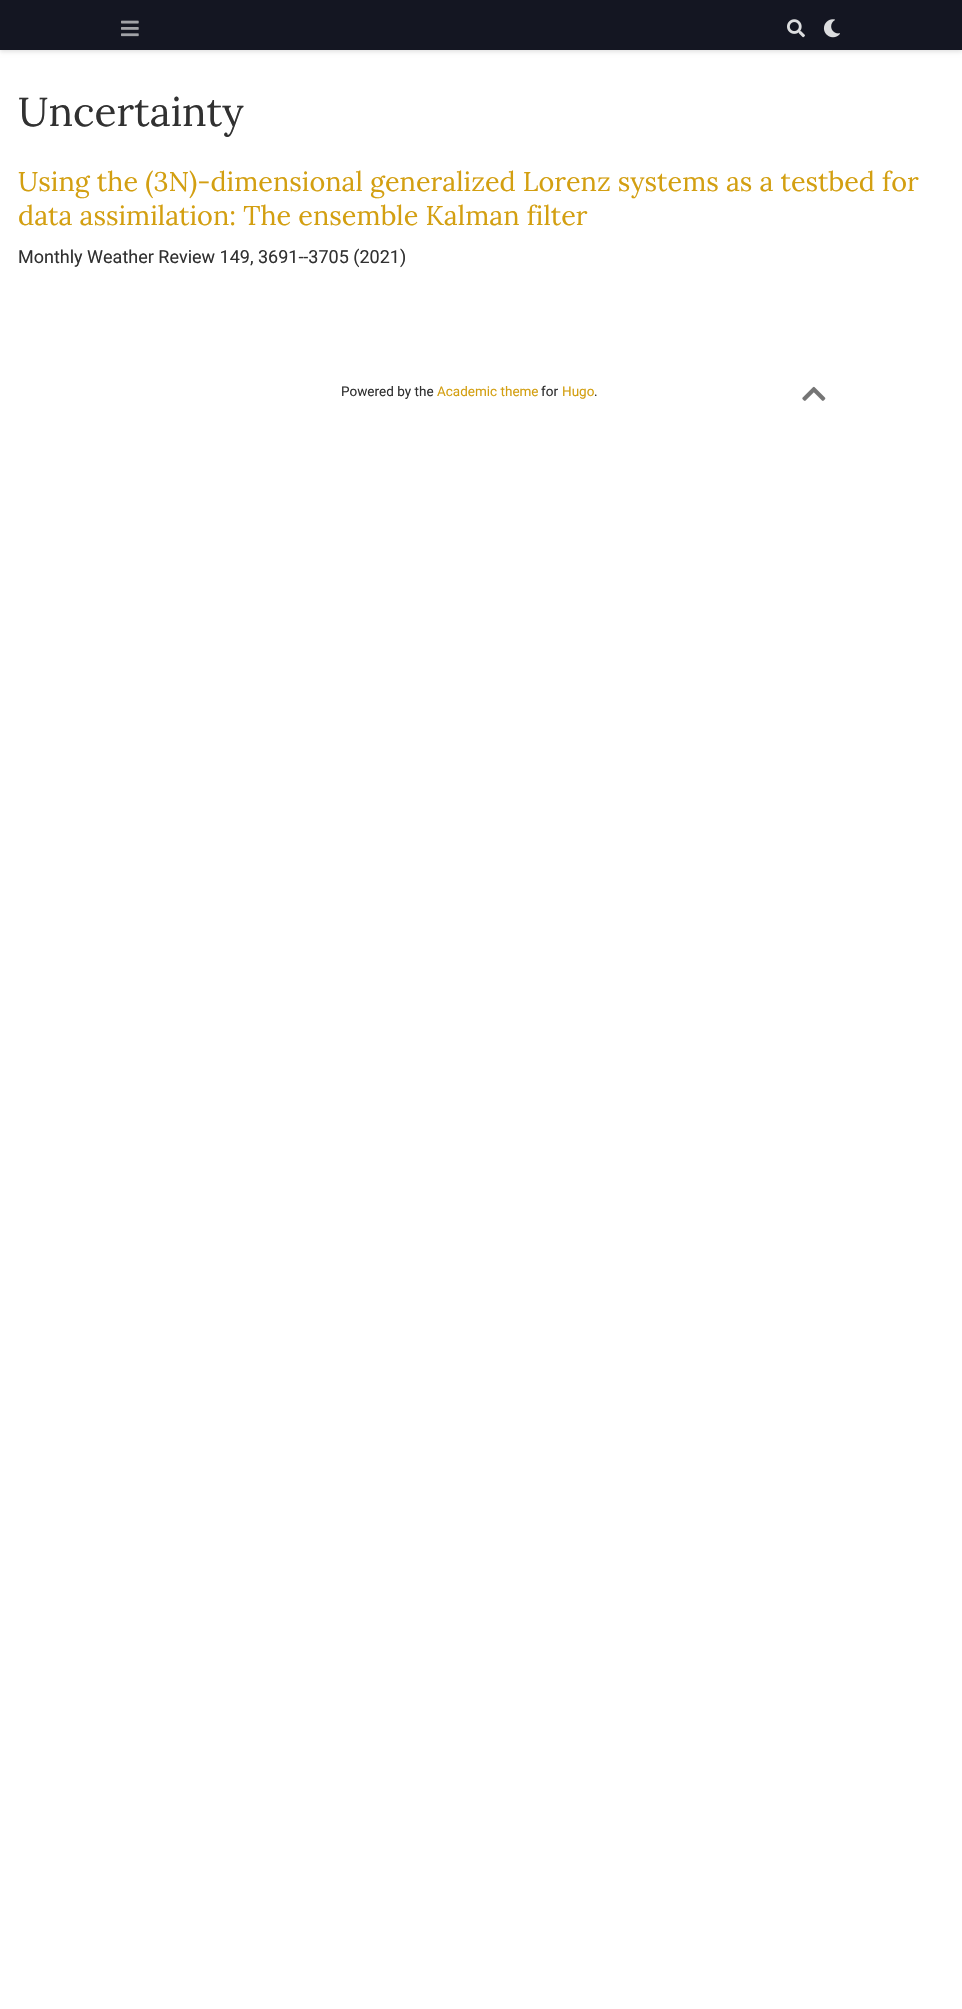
void draw(SkCanvas* c) {
SkPaint p;
p.setAntiAlias(true);
auto F=[&](const char* family, int weight, float size, bool italic = false){SkFontStyle style(weight, SkFontStyle::kNormal_Width,italic ? SkFontStyle::kItalic_Slant : SkFontStyle::kUpright_Slant);SkFont result(fontMgr->matchFamilyStyle(family, style), size);result.setSubpixel(true);return result;};
auto T=[&](const char* s, float x, float y, const SkFont& font){c->drawString(s, x, y, font, p);};
auto R=[&](float x, float y, float w, float h){c->drawRect(SkRect::MakeXYWH(x, y, w, h), p);};
auto I=[&](const char* path, float x, float y, float w, float h){auto image = SkImages::DeferredFromEncodedData(SkData::MakeFromFileName(path));c->drawImageRect(image, SkRect::MakeXYWH(x, y, w, h), SkSamplingOptions());};
c->clear(0xffffffff);
p.setColor(0x1c000000);
p.setMaskFilter(SkMaskFilter::MakeBlur(kNormal_SkBlurStyle, 2));
c->drawRect(SkRect::MakeXYWH(0,2,962,50),p);
p.setMaskFilter(nullptr);
p.setColor(0xff141622);
R(0,0,962,50);
I("1.png",121,20,18,17);
I("2.png",787,19,18,19);
I("3.png",823,19,17,19);
auto f1 = F("Lora",400,40.5);
p.setColor(0xff313131);
T("Uncertainty",18,126,f1);
auto f2 = F("Lora",400,27);
p.setColor(0xffd39f11);
T("Using the (3N)-dimensional generalized Lorenz systems as a testbed for",18,191,f2);
T("data assimilation: The ensemble Kalman filter",18,225,f2);
auto f3 = F("Roboto",400,18);
p.setColor(0xff313131);
T("Monthly Weather Review 149, 3691--3705 (2021)",18,263,f3);
auto f4 = F("Roboto",400,13.5);
T("Powered by the",341,396,f4);
p.setColor(0xffd39f11);
T("Academic theme",437,396,f4);
p.setColor(0xff313131);
T("for",541,396,f4);
p.setColor(0xffd39f11);
T("Hugo",562,396,f4);
p.setColor(0xff313131);
T(".",594,396,f4);
I("4.png",802,386,24,15);
}
